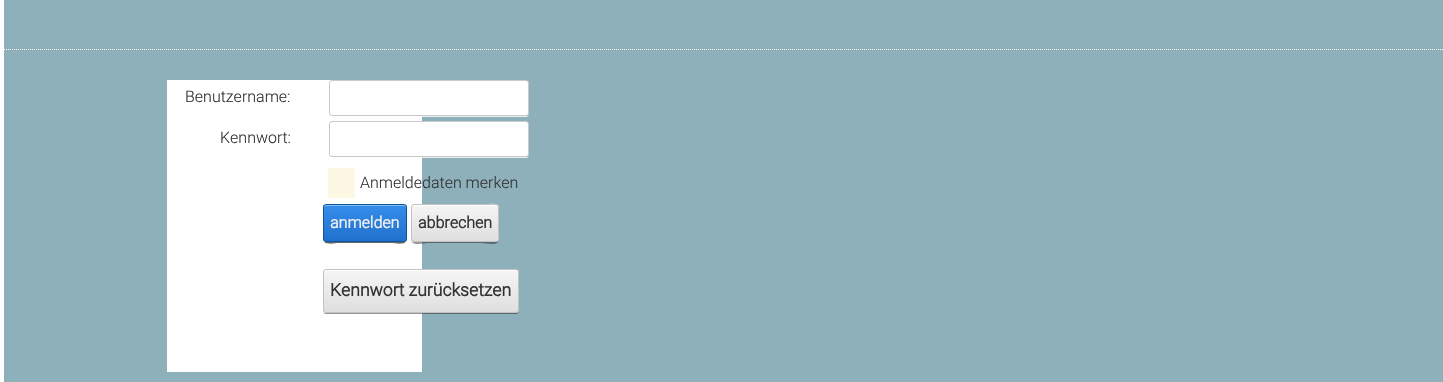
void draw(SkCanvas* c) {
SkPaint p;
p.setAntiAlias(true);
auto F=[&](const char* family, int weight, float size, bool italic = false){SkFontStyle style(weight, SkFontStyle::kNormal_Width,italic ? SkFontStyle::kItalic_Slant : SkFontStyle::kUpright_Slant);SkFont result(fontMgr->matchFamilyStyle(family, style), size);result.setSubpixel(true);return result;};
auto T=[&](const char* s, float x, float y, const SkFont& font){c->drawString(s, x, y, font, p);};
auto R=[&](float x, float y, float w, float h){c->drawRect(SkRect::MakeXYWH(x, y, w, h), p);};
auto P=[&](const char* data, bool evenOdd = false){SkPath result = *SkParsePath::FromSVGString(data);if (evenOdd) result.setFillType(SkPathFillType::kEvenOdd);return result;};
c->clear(0xff8eb0bb);
p.setStroke(true);
p.setStrokeWidth(1);
p.setColor(0xffffffff);
p.setPathEffect(SkDashPathEffect::Make({{1,1}}, 0));
c->drawPath(P("M0 49.5h1443"),p);
p.setPathEffect(nullptr);
p.setStroke(false);
R(0,0,4,382);
R(167,80,255,292);
auto f1 = F("Roboto",300,16);
p.setColor(0xff333333);
T("Benutzername:",185,102,f1);
p.setColor(0xccffffff);
c->drawPath(P("M329 113c0 2 1 4 3 4h194c2 0 3-2 3-4c0 2-1 3-3 3h-195l-1-1z"),p);
p.setColor(0xffffffff);
c->drawRoundRect(SkRect::MakeXYWH(329.5,80.5,199,35),2.5,2.5,p);
p.setStroke(true);
p.setColor(0xffc9c9c9);
c->drawRoundRect(SkRect::MakeXYWH(329.5,80.5,199,35),2.5,2.5,p);
p.setStroke(false);
p.setColor(0xff333333);
T("Kennwort:",220,143,f1);
p.setColor(0xccffffff);
c->drawPath(P("M329 154c0 2 1 4 3 4h194c2 0 3-2 3-4c0 2-1 3-3 3h-195l-1-1z"),p);
p.setColor(0xffffffff);
c->drawRoundRect(SkRect::MakeXYWH(329.5,121.5,199,35),2.5,2.5,p);
p.setStroke(true);
p.setColor(0xffc9c9c9);
c->drawRoundRect(SkRect::MakeXYWH(329.5,121.5,199,35),2.5,2.5,p);
p.setStroke(false);
p.setColor(0xfffcf8e3);
R(328,168,27,30);
p.setColor(0xff333333);
T("Anmeldedaten merken",360,188,f1);
p.setColor(0xff666666);
c->drawPath(P("M323 239c0 7 12 4 16 4h52c4 0 16 3 16-4c0 2-1 3-3 3h-78c-2 0-3-1-3-3z"),p);
c->save();
c->clipPath(P("M326 204h78c1.5 0 3 1.5 3 3v32c0 1.5-1.5 3-3 3h-78c-1.5 0-3-1.5-3-3v-32c0-1.5 1.5-3 3-3z"),true);
{
const SkColor colors[] = {0xff358eea,0xff2170cd};
const float stops[] = {0,1};
const SkPoint ends[] = {{365,205}, {365,241}};
p.setShader(SkGradientShader::MakeLinear(ends, colors, stops, 2, SkTileMode::kClamp));
p.setAlpha(255);
}
R(323,205,84,36);
c->restore();
p.setShader(nullptr);
p.setColor(0x66ffffff);
c->drawPath(P("M326 206h78c1 0 2 1 2 2c0-7-12-3-15-3h-52c-3 0-15-4-15 3c0-1 1-2 2-2z"),p);
p.setStroke(true);
p.setColor(0xff0d569e);
c->drawRoundRect(SkRect::MakeXYWH(323.5,204.5,83,37),2.5,2.5,p);
auto f2 = F("Roboto",700,16);
p.setStroke(false);
p.setColor(0xffefefef);
T("anmelden",330,228,f2);
p.setColor(0x66000000);
c->drawPath(P("M411 239c0 8 13 4 17 4h54c4 0 17 4 17-4c0 2-1 3-3 3h-82c-2 0-3-1-3-3z"),p);
c->save();
c->clipPath(P("M414 204h82c1.5 0 3 1.5 3 3v32c0 1.5-1.5 3-3 3h-82c-1.5 0-3-1.5-3-3v-32c0-1.5 1.5-3 3-3z"),true);
{
const SkColor colors[] = {0xfff5f5f5,0xffdfdfdf};
const float stops[] = {0,1};
const SkPoint ends[] = {{455,205}, {455,241}};
p.setShader(SkGradientShader::MakeLinear(ends, colors, stops, 2, SkTileMode::kClamp));
p.setAlpha(255);
}
R(411,205,88,36);
c->restore();
p.setShader(nullptr);
p.setColor(0xffffffff);
c->drawPath(P("M414 206h82c1 0 2 1 2 2c0-7-13-3-16-3h-54c-3 0-16-4-16 3c0-1 1-2 2-2z"),p);
p.setStroke(true);
p.setColor(0xffc2c2c2);
c->drawRoundRect(SkRect::MakeXYWH(411.5,204.5,87,37),2.5,2.5,p);
p.setStroke(false);
p.setColor(0xff333333);
T("abbrechen",418,228,f2);
p.setColor(0x66000000);
c->drawPath(P("M323 310c0 2 1 4 3 4h190c2 0 3-2 3-4c0 2-1 3-3 3h-190c-2 0-3-1-3-3z"),p);
c->save();
c->clipPath(P("M326 269h190c1.5 0 3 1.5 3 3v38c0 1.5-1.5 3-3 3h-190c-1.5 0-3-1.5-3-3v-38c0-1.5 1.5-3 3-3z"),true);
{
const SkColor colors[] = {0xfff5f5f5,0xffdfdfdf};
const float stops[] = {0,1};
const SkPoint ends[] = {{421,270}, {421,312}};
p.setShader(SkGradientShader::MakeLinear(ends, colors, stops, 2, SkTileMode::kClamp));
p.setAlpha(255);
}
R(323,270,196,42);
c->restore();
p.setShader(nullptr);
p.setColor(0xffffffff);
c->drawPath(P("M326 271h190l2 1v1v-1c0-1-1-2-2-2h-190c-1 0-2 1-2 2v1c0-1 1-2 2-2z"),p);
p.setStroke(true);
p.setColor(0xffc2c2c2);
c->drawRoundRect(SkRect::MakeXYWH(323.5,269.5,195,43),2.5,2.5,p);
auto f3 = F("Roboto",700,17.6);
p.setStroke(false);
p.setColor(0xff333333);
T("Kennwort zurücksetzen",330,296,f3);
}
